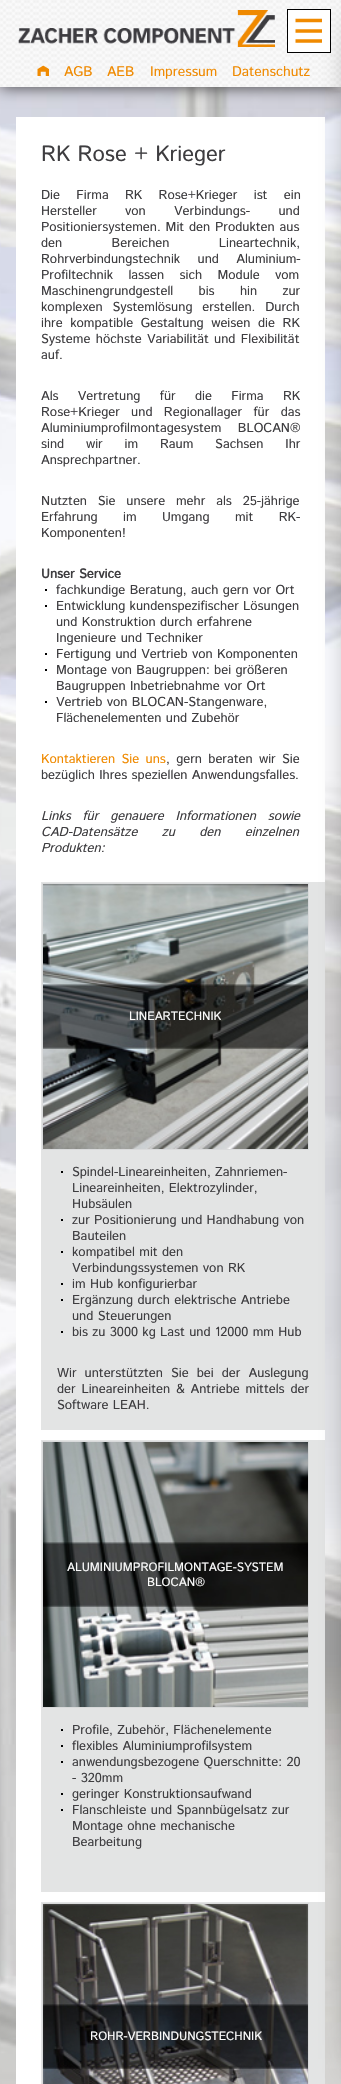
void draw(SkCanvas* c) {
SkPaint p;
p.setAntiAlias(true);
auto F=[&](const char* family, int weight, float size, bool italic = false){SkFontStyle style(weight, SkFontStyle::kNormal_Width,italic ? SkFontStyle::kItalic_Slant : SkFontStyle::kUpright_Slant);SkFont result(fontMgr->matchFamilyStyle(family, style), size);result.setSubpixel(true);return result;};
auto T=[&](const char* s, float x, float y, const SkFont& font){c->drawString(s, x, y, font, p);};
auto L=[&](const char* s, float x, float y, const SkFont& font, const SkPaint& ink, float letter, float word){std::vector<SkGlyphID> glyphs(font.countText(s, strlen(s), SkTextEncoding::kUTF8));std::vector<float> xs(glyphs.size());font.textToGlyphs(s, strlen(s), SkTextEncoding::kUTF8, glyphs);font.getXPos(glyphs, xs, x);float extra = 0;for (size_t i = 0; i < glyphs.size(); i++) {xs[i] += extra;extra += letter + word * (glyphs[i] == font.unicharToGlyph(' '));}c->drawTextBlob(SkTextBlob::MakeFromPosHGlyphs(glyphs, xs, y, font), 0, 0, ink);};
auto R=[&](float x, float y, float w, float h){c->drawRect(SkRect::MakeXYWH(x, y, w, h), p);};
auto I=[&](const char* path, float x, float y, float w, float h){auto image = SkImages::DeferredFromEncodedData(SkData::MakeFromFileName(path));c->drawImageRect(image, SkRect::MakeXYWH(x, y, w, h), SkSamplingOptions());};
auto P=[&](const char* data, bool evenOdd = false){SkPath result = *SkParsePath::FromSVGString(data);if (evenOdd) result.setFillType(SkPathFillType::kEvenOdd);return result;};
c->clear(0xffffffff);
I("1.png",0,87,341,1997);
p.setColor(0xff3e3d40);
p.setMaskFilter(SkMaskFilter::MakeBlur(kNormal_SkBlurStyle, 7.5));
c->drawRect(SkRect::MakeXYWH(0,0,341,87),p);
p.setMaskFilter(nullptr);
I("2.png",0,0,341,87);
I("3.png",18,10,257,37);
I("4.png",37,65,12,11);
auto f1 = F("Istok Web",400,14);
p.setColor(0xfff08a00);
T("AGB",64,76,f1);
T("AEB",107,76,f1);
T("Impressum",150,76,f1);
T("Datenschutz",232,76,f1);
p.setColor(0xffffffff);
R(16,117,309,1967);
auto f2 = F("Istok Web",400,22);
p.setColor(0xff3e3d40);
T("RK Rose + Krieger",41,161,f2);
auto f3 = F("Istok Web",400,13);
L("Die Firma RK Rose+Krieger ist ein",41,199,f3,p,0,12);
L("Hersteller von Verbindungs- und",41,215,f3,p,0,24);
L("Positioniersystemen. Mit den Produkten aus",41,231,f3,p,0,.5);
L("den Bereichen Lineartechnik,",41,247,f3,p,0,45);
L("Rohrverbindungstechnik und Aluminium-",41,263,f3,p,0,13);
L("Profiltechnik lassen sich Module vom",41,279,f3,p,0,11);
L("Maschinengrundgestell bis hin zur",41,295,f3,p,0,21);
L("komplexen Systemlösung erstellen. Durch",41,311,f3,p,0,5.5);
L("ihre kompatible Gestaltung weisen die RK",41,327,f3,p,0,3.25);
L("Systeme höchste Variabilität und Flexibilität",41,343,f3,p,0,1);
T("auf.",41,359,f3);
L("Als Vertretung für die Firma RK",41,400,f3,p,0,15);
L("Rose+Krieger und Regionallager für das",41,416,f3,p,0,7);
L("Aluminiumprofilmontagesystem BLOCAN®",41,432,f3,p,0,12);
L("sind wir im Raum Sachsen Ihr",41,448,f3,p,0,17.5);
T("Ansprechpartner.",41,464,f3);
L("Nutzten Sie unsere mehr als 25-jährige",41,505,f3,p,0,6.5);
L("Erfahrung im Umgang mit RK-",41,521,f3,p,0,21);
T("Komponenten!",41,537,f3);
auto f4 = F("Istok Web",700,13);
T("Unser Service",41,578,f4);
p.setColor(0xff000000);
R(45,589,2,2);
p.setColor(0xff3e3d40);
T("fachkundige Beratung, auch gern vor Ort",56,594,f3);
p.setColor(0xff000000);
R(45,605,2,2);
p.setColor(0xff3e3d40);
T("Entwicklung kundenspezifischer Lösungen",56,610,f3);
T("und Konstruktion durch erfahrene",56,626,f3);
T("Ingenieure und Techniker",56,642,f3);
p.setColor(0xff000000);
R(45,653,2,2);
p.setColor(0xff3e3d40);
T("Fertigung und Vertrieb von Komponenten",56,658,f3);
p.setColor(0xff000000);
R(45,669,2,2);
p.setColor(0xff3e3d40);
T("Montage von Baugruppen: bei größeren",56,674,f3);
T("Baugruppen Inbetriebnahme vor Ort",56,690,f3);
p.setColor(0xff000000);
R(45,701,2,2);
p.setColor(0xff3e3d40);
T("Vertrieb von BLOCAN-Stangenware,",56,706,f3);
T("Flächenelementen und Zubehör",56,722,f3);
p.setColor(0xfff08a00);
L("Kontaktieren Sie uns",41,763,f3,p,0,2);
p.setColor(0xff3e3d40);
L(", gern beraten wir Sie",166,763,f3,p,0,2);
T("bezüglich Ihres speziellen Anwendungsfalles.",41,779,f3);
auto f5 = F("Istok Web",400,13,true);
L("Links für genauere Informationen sowie",41,820,f5,p,0,7.5);
L("CAD-Datensätze zu den einzelnen",41,836,f5,p,0,20);
T("Produkten:",41,852,f5);
p.setColor(0xffe3e4e4);
R(41,882,284,548);
p.setStroke(true);
p.setStrokeWidth(1);
p.setColor(0xffd9dadb);
c->drawRect(SkRect::MakeXYWH(42.5,883.5,266,266),p);
I("5.png",43,884,265,265);
auto f6 = F("Istok Web",400,12);
p.setStroke(false);
p.setColor(0xfffcfcfc);
T("LINEARTECHNIK",129,1020,f6);
p.setColor(0xff000000);
R(61,1171,2,2);
p.setColor(0xff3e3d40);
T("Spindel-Lineareinheiten, Zahnriemen-",72,1176,f3);
T("Lineareinheiten, Elektrozylinder,",72,1192,f3);
T("Hubsäulen",72,1208,f3);
p.setColor(0xff000000);
R(61,1219,2,2);
p.setColor(0xff3e3d40);
T("zur Positionierung und Handhabung von",72,1224,f3);
T("Bauteilen",72,1240,f3);
p.setColor(0xff000000);
R(61,1251,2,2);
p.setColor(0xff3e3d40);
T("kompatibel mit den",72,1256,f3);
T("Verbindungssystemen von RK",72,1272,f3);
p.setColor(0xff000000);
R(61,1283,2,2);
p.setColor(0xff3e3d40);
T("im Hub konfigurierbar",72,1288,f3);
p.setColor(0xff000000);
R(61,1299,2,2);
p.setColor(0xff3e3d40);
T("Ergänzung durch elektrische Antriebe",72,1304,f3);
T("und Steuerungen",72,1320,f3);
p.setColor(0xff000000);
R(61,1331,2,2);
p.setColor(0xff3e3d40);
T("bis zu 3000 kg Last und 12000 mm Hub",72,1336,f3);
L("Wir unterstützten Sie bei der Auslegung",57,1377,f3,p,0,3.75);
L("der Lineareinheiten & Antriebe mittels der",57,1393,f3,p,0,1.5);
T("Software LEAH.",57,1409,f3);
p.setColor(0xffe3e4e4);
R(41,1440,284,452);
p.setStroke(true);
p.setColor(0xffd9dadb);
c->drawRect(SkRect::MakeXYWH(42.5,1441.5,266,266),p);
I("6.png",43,1442,265,265);
p.setStroke(false);
p.setColor(0xfffcfcfc);
T("ALUMINIUMPROFILMONTAGE-SYSTEM",67,1571,f6);
T("BLOCAN®",147,1586,f6);
p.setColor(0xff000000);
R(61,1729,2,2);
p.setColor(0xff3e3d40);
T("Profile, Zubehör, Flächenelemente",72,1734,f3);
p.setColor(0xff000000);
R(61,1745,2,2);
p.setColor(0xff3e3d40);
T("flexibles Aluminiumprofilsystem",72,1750,f3);
p.setColor(0xff000000);
R(61,1761,2,2);
p.setColor(0xff3e3d40);
T("anwendungsbezogene Querschnitte: 20",72,1766,f3);
T("- 320mm",72,1782,f3);
p.setColor(0xff000000);
R(61,1793,2,2);
p.setColor(0xff3e3d40);
T("geringer Konstruktionsaufwand",72,1798,f3);
p.setColor(0xff000000);
R(61,1809,2,2);
p.setColor(0xff3e3d40);
T("Flanschleiste und Spannbügelsatz zur",72,1814,f3);
T("Montage ohne mechanische",72,1830,f3);
T("Bearbeitung",72,1846,f3);
p.setColor(0xffe3e4e4);
R(41,1902,284,182);
p.setStroke(true);
p.setColor(0xffd9dadb);
c->drawRect(SkRect::MakeXYWH(42.5,1903.5,266,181),p);
I("7.png",43,1904,265,180);
p.setStroke(false);
p.setColor(0xfffcfcfc);
T("ROHR-VERBINDUNGSTECHNIK",90,2040,f6);
p.setColor(0xff000000);
p.setMaskFilter(SkMaskFilter::MakeBlur(kNormal_SkBlurStyle, 20));
c->drawRect(SkRect::MakeXYWH(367,25,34,2034),p);
p.setMaskFilter(nullptr);
p.setColor(0xf2ffffff);
R(288,10,42,42);
p.setStroke(true);
p.setStrokeWidth(3.4);
p.setColor(0xfff08a00);
c->drawPath(P("M295.5 20.5h26.5m-26.5 10.5h26.5m-26.5 10h26.5"),p);
p.setStrokeWidth(1);
p.setColor(0xff000000);
c->drawRect(SkRect::MakeXYWH(287.5,9.5,43,43),p);
}
